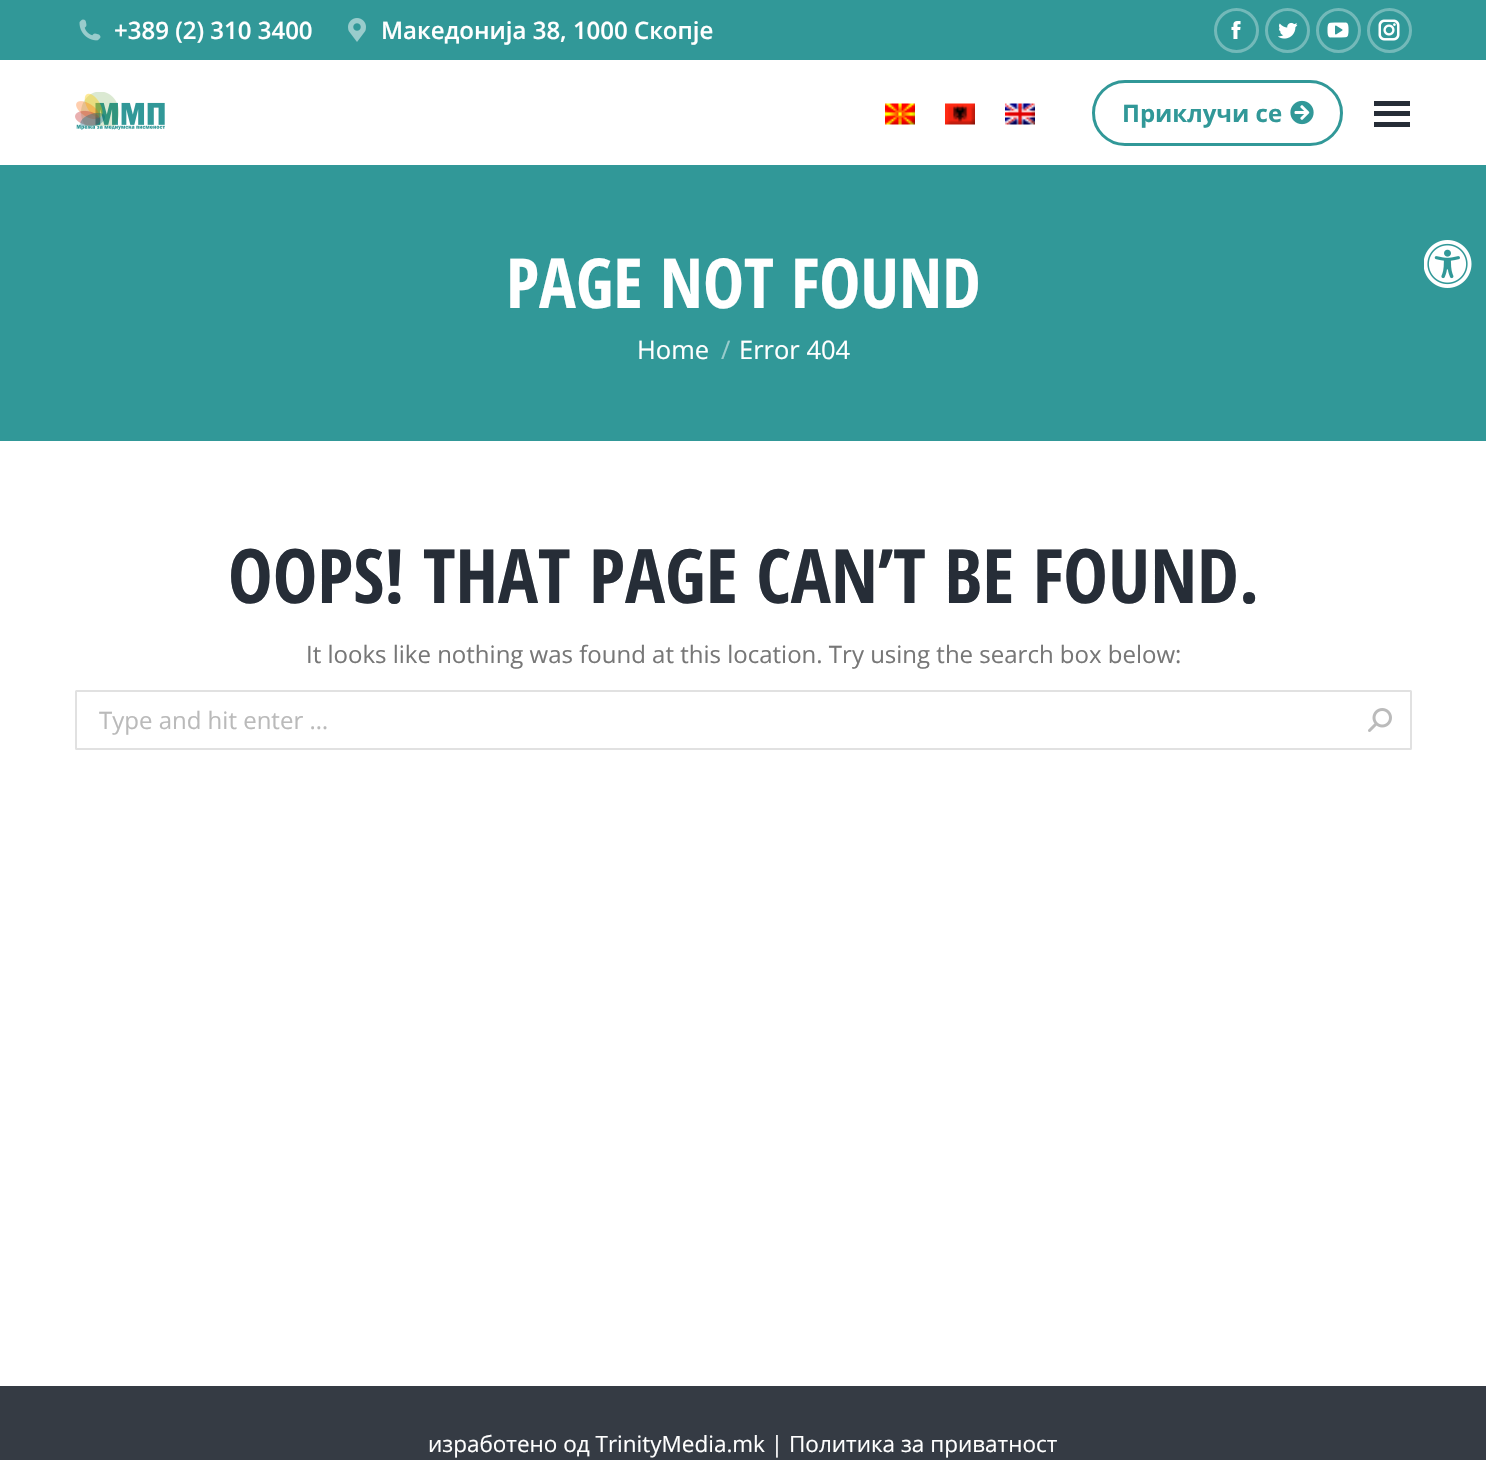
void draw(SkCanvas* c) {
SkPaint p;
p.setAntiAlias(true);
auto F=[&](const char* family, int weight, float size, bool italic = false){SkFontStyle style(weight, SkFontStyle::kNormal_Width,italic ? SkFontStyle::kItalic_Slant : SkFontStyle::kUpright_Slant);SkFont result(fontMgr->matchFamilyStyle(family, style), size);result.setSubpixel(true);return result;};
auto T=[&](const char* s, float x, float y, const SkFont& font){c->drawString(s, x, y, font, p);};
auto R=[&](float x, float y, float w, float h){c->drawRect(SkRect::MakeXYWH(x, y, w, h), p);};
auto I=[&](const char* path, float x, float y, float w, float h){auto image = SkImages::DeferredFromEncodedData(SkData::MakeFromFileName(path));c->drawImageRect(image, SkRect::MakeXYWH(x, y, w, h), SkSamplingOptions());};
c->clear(0xffffffff);
p.setColor(0xff319898);
R(0,0,1486,60);
I("1.png",79,19,22,22);
auto f1 = F("Open Sans",600,24);
p.setColor(0xffffffff);
T("+389 (2) 310 3400",114,39,f1);
I("2.png",348,18,18,24);
T("Македонија 38, 1000 Скопје",381,39,f1);
p.setStroke(true);
p.setStrokeWidth(3);
p.setColor(0xff73b9b9);
c->drawCircle(1236.5,30.5,21,p);
I("3.png",1231,21,10,18);
c->drawCircle(1287.5,30.5,21,p);
I("4.png",1278,22,20,17);
c->drawCircle(1338.5,30.5,21,p);
I("5.png",1327,22,22,16);
c->drawCircle(1389.5,30.5,21,p);
I("6.png",1378,19,22,22);
I("7.png",75,92,90,38);
I("8.png",885,103,30,22);
I("9.png",945,103,30,22);
I("10.png",1005,103,30,22);
p.setColor(0xff319898);
c->drawRoundRect(SkRect::MakeXYWH(1093.5,81.5,248,63),31.5,31.5,p);
auto f2 = F("Open Sans",700,24);
p.setStroke(false);
T("Приклучи се",1122,122,f2);
I("11.png",1290,100,24,25);
p.setColor(0xff262d37);
R(1374,101,36,5);
R(1374,111,36,5);
R(1374,122,36,5);
p.setColor(0xff319898);
R(0,165,1486,276);
auto f3 = F("Open Sans Condensed",700,69);
p.setColor(0xffffffff);
T("PAGE NOT FOUND",506,308,f3);
auto f4 = F("Open Sans",400,25.5);
T("Home",637,359,f4);
p.setColor(0xff98cccc);
T("/",721,359,f4);
p.setColor(0xffffffff);
T("Error 404",739,359,f4);
auto f5 = F("Open Sans Condensed",700,75);
p.setColor(0xff262d37);
T("OOPS! THAT PAGE CAN’T BE FOUND.",228,603,f5);
auto f6 = F("Open Sans",400,24);
p.setColor(0xff777777);
T("It looks like nothing was found at this location. Try using the search box below:",306,663,f6);
p.setStroke(true);
p.setStrokeWidth(2);
p.setColor(0xffe1e1e1);
c->drawRoundRect(SkRect::MakeXYWH(76,691,1335,58),.5,.5,p);
p.setStroke(false);
p.setColor(0xffbababa);
T("Type and hit enter …",99,729,f6);
I("12.png",1368,708,24,24);
p.setColor(0xff353b44);
R(0,1386,1486,74);
auto f7 = F("Open Sans",400,22.5);
p.setColor(0xffffffff);
T("изработено од TrinityMedia.mk | Политика за приватност",428,1452,f7);
I("13.png",1424,240,48,48);
}
